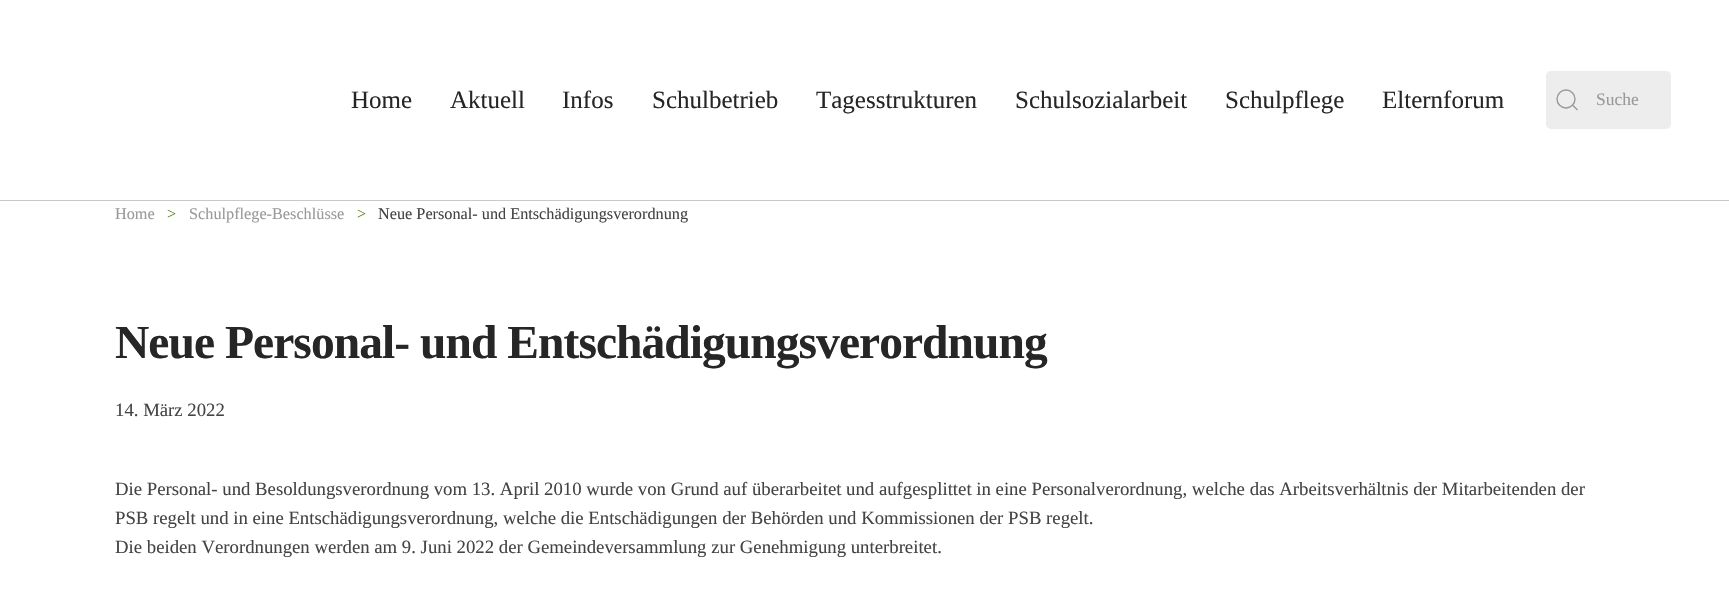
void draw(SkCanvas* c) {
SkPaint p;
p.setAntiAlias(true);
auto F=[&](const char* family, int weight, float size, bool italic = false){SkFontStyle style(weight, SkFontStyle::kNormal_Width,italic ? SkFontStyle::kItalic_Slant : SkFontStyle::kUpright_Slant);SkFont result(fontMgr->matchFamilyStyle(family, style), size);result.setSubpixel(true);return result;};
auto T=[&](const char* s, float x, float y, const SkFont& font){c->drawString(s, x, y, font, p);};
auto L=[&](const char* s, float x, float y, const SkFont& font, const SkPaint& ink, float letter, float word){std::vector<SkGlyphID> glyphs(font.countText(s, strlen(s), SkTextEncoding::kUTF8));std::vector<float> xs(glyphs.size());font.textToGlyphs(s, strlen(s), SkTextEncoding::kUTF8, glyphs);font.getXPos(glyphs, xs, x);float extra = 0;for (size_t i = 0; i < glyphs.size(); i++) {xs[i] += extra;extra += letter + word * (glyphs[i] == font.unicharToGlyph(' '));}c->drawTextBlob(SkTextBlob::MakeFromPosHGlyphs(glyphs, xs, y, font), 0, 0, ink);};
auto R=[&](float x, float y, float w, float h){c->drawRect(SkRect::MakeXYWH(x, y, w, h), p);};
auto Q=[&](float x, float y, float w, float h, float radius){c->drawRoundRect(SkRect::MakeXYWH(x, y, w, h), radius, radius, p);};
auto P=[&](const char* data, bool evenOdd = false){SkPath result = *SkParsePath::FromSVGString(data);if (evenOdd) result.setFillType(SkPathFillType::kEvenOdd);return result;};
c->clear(0xffffffff);
p.setColor(0xffc9c9c9);
R(0,200,1729,1);
auto f1 = F("Liberation Serif",400,25);
p.setColor(0xff262626);
T("Home",351,108,f1);
T("Aktuell",450,108,f1);
T("Infos",562,108,f1);
T("Schulbetrieb",652,108,f1);
T("Tagesstrukturen",816,108,f1);
T("Schulsozialarbeit",1015,108,f1);
T("Schulpflege",1225,108,f1);
T("Elternforum",1382,108,f1);
p.setColor(0xffeeeded);
Q(1546,71,125,58,5);
p.setStroke(true);
p.setStrokeWidth(1.4);
p.setColor(0xff999999);
c->drawCircle(1566,99,9,p);
c->drawPath(P("M1572.5 105l5 5z"),p);
auto f2 = F("Liberation Serif",400,17.5);
p.setStroke(false);
T("Suche",1596,105,f2);
auto f3 = F("Liberation Serif",400,16.25);
T("Home",115,219,f3);
p.setColor(0xff51800f);
T(">",167,219,f3);
p.setColor(0xff999999);
T("Schulpflege-Beschlüsse",189,219,f3);
p.setColor(0xff51800f);
T(">",357,219,f3);
p.setColor(0xff444444);
T("Neue Personal- und Entschädigungsverordnung",378,219,f3);
auto f4 = F("Liberation Serif",700,47.5);
p.setColor(0xff262626);
L("Neue Personal- und Entschädigungsverordnung",115,358,f4,p,-.95,0);
auto f5 = F("Liberation Serif",400,18.75);
p.setColor(0xff444444);
T("14. März 2022",115,416,f5);
T("Die Personal- und Besoldungsverordnung vom 13. April 2010 wurde von Grund auf überarbeitet und aufgesplittet in eine Personalverordnung, welche das Arbeitsverhältnis der Mitarbeitenden der",115,495,f5);
T("PSB regelt und in eine Entschädigungsverordnung, welche die Entschädigungen der Behörden und Kommissionen der PSB regelt.",115,524,f5);
T("Die beiden Verordnungen werden am 9. Juni 2022 der Gemeindeversammlung zur Genehmigung unterbreitet.",115,553,f5);
}
